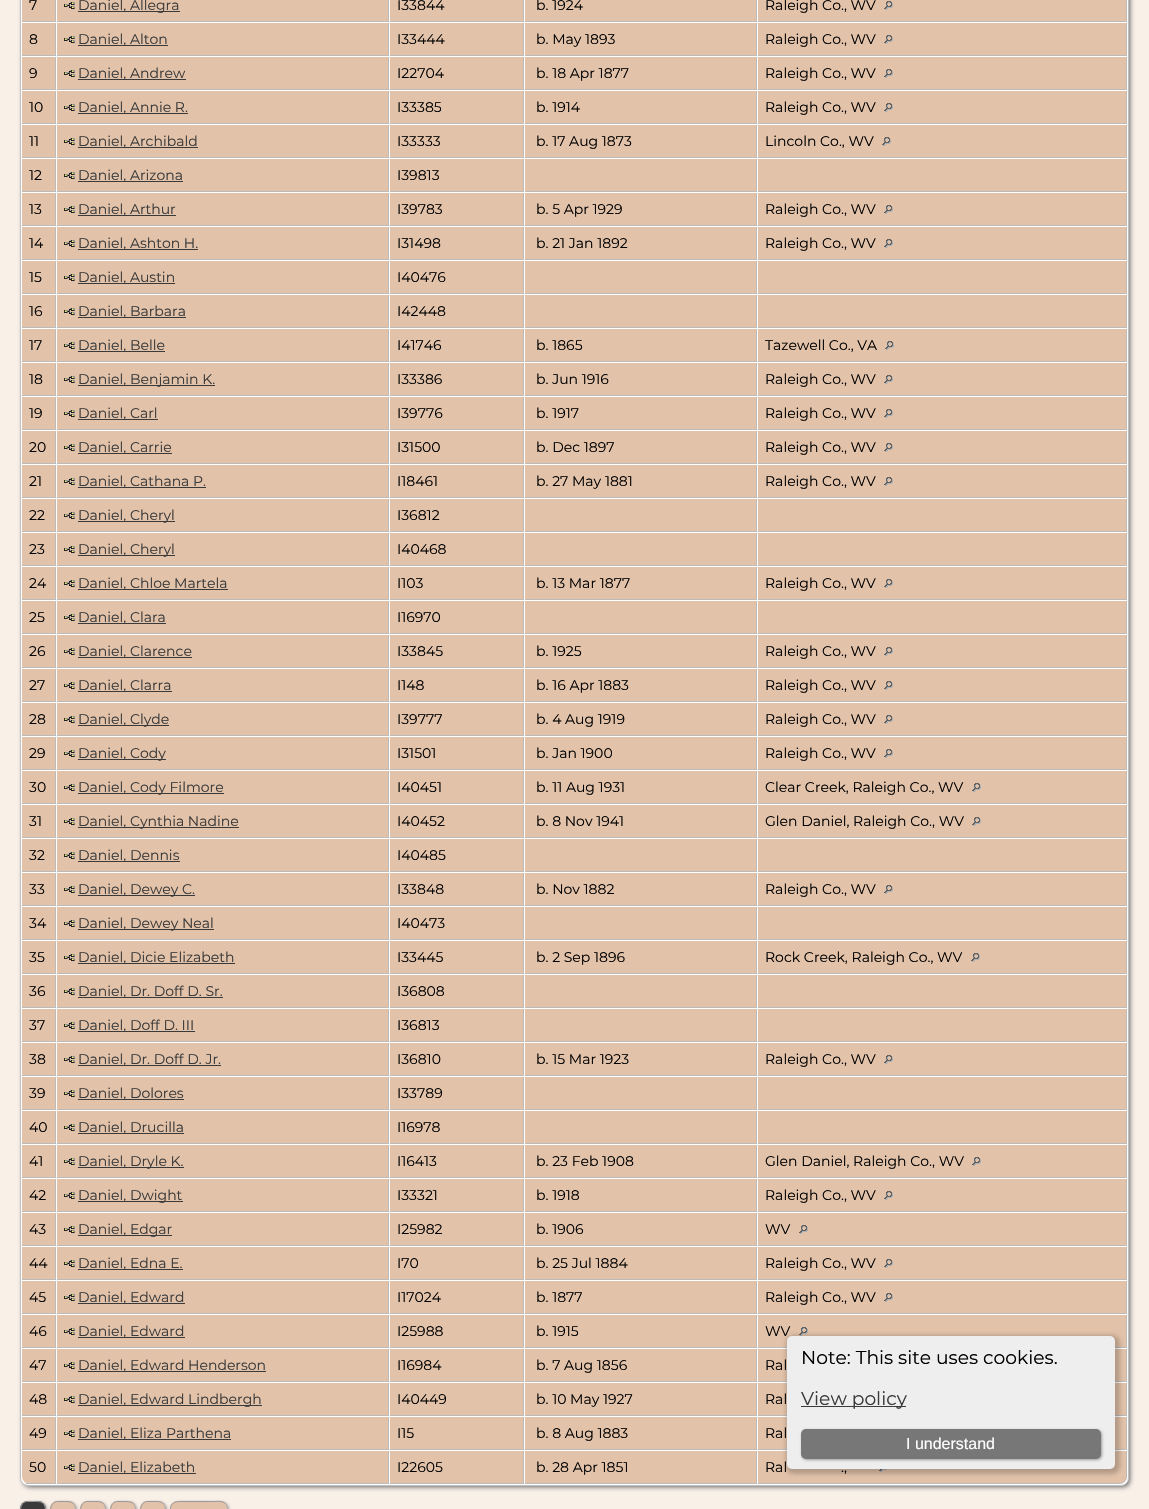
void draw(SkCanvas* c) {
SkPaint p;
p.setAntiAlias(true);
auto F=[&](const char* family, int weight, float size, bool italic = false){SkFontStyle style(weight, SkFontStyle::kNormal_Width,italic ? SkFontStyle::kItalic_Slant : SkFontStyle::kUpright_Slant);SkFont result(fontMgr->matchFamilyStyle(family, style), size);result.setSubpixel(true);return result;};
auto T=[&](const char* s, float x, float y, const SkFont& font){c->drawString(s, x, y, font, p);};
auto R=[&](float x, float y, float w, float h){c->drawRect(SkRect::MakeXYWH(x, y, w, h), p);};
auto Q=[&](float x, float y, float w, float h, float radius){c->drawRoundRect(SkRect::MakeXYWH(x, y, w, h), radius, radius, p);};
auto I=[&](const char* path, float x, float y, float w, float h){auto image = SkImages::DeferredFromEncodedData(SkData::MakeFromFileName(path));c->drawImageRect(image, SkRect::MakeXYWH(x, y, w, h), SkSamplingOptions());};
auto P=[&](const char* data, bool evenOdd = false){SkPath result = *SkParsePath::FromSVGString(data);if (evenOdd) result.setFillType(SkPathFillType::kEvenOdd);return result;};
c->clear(0xfff9f0e8);
p.setColor(0xff666666);
p.setMaskFilter(SkMaskFilter::MakeBlur(kNormal_SkBlurStyle, 2.5));
c->drawRoundRect(SkRect::MakeXYWH(23,-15,1107,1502),7,7,p);
p.setMaskFilter(nullptr);
p.setColor(0xffffffff);
c->drawRoundRect(SkRect::MakeXYWH(20.5,-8.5,1108,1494),7.5,7.5,p);
p.setStroke(true);
p.setStrokeWidth(1);
p.setColor(0xffc0c0c0);
c->drawRoundRect(SkRect::MakeXYWH(20.5,-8.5,1108,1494),7.5,7.5,p);
p.setStroke(false);
p.setColor(0xffe2c2a9);
R(22,0,33,21);
p.setColor(0xffbbbbbb);
R(55,0,1,22);
R(22,21,34,1);
auto f1 = F("Montserrat",100,14);
p.setColor(0xff000000);
T("7",29,10,f1);
p.setColor(0xffe2c2a9);
R(57,0,331,21);
p.setColor(0xffbbbbbb);
R(388,0,1,22);
R(57,21,332,1);
I("1.png",64,2,11,7);
p.setColor(0xff3a3a3a);
R(78,11,102,1);
T("Daniel, Allegra",78,10,f1);
p.setColor(0xffe2c2a9);
R(390,0,133,21);
p.setColor(0xffbbbbbb);
R(523,0,1,22);
R(390,21,134,1);
p.setColor(0xff000000);
T("I33844",397,10,f1);
p.setColor(0xffe2c2a9);
R(525,0,231,21);
p.setColor(0xffbbbbbb);
R(756,0,1,22);
R(525,21,232,1);
p.setColor(0xff000000);
T("b. 1924",536,10,f1);
p.setColor(0xffe2c2a9);
R(758,0,368,21);
p.setColor(0xffbbbbbb);
R(1126,0,1,22);
R(758,21,369,1);
p.setColor(0xff000000);
T("Raleigh Co., WV",765,10,f1);
I("2.png",884,1,9,9);
p.setColor(0xffe2c2a9);
R(22,23,33,32);
p.setColor(0xffbbbbbb);
R(55,23,1,33);
R(22,55,34,1);
p.setColor(0xff000000);
T("8",29,44,f1);
p.setColor(0xffe2c2a9);
R(57,23,331,32);
p.setColor(0xffbbbbbb);
R(388,23,1,33);
R(57,55,332,1);
I("1.png",64,36,11,7);
p.setColor(0xff3a3a3a);
R(78,45,90,1);
T("Daniel, Alton",78,44,f1);
p.setColor(0xffe2c2a9);
R(390,23,133,32);
p.setColor(0xffbbbbbb);
R(523,23,1,33);
R(390,55,134,1);
p.setColor(0xff000000);
T("I33444",397,44,f1);
p.setColor(0xffe2c2a9);
R(525,23,231,32);
p.setColor(0xffbbbbbb);
R(756,23,1,33);
R(525,55,232,1);
p.setColor(0xff000000);
T("b. May 1893",536,44,f1);
p.setColor(0xffe2c2a9);
R(758,23,368,32);
p.setColor(0xffbbbbbb);
R(1126,23,1,33);
R(758,55,369,1);
p.setColor(0xff000000);
T("Raleigh Co., WV",765,44,f1);
I("2.png",884,35,9,9);
p.setColor(0xffe2c2a9);
R(22,57,33,32);
p.setColor(0xffbbbbbb);
R(55,57,1,33);
R(22,89,34,1);
p.setColor(0xff000000);
T("9",29,78,f1);
p.setColor(0xffe2c2a9);
R(57,57,331,32);
p.setColor(0xffbbbbbb);
R(388,57,1,33);
R(57,89,332,1);
I("1.png",64,70,11,7);
p.setColor(0xff3a3a3a);
R(78,79,108,1);
T("Daniel, Andrew",78,78,f1);
p.setColor(0xffe2c2a9);
R(390,57,133,32);
p.setColor(0xffbbbbbb);
R(523,57,1,33);
R(390,89,134,1);
p.setColor(0xff000000);
T("I22704",397,78,f1);
p.setColor(0xffe2c2a9);
R(525,57,231,32);
p.setColor(0xffbbbbbb);
R(756,57,1,33);
R(525,89,232,1);
p.setColor(0xff000000);
T("b. 18 Apr 1877",536,78,f1);
p.setColor(0xffe2c2a9);
R(758,57,368,32);
p.setColor(0xffbbbbbb);
R(1126,57,1,33);
R(758,89,369,1);
p.setColor(0xff000000);
T("Raleigh Co., WV",765,78,f1);
I("2.png",884,69,9,9);
p.setColor(0xffe2c2a9);
R(22,91,33,32);
p.setColor(0xffbbbbbb);
R(55,91,1,33);
R(22,123,34,1);
p.setColor(0xff000000);
T("10",29,112,f1);
p.setColor(0xffe2c2a9);
R(57,91,331,32);
p.setColor(0xffbbbbbb);
R(388,91,1,33);
R(57,123,332,1);
I("1.png",64,104,11,7);
p.setColor(0xff3a3a3a);
R(78,113,110,1);
T("Daniel, Annie R.",78,112,f1);
p.setColor(0xffe2c2a9);
R(390,91,133,32);
p.setColor(0xffbbbbbb);
R(523,91,1,33);
R(390,123,134,1);
p.setColor(0xff000000);
T("I33385",397,112,f1);
p.setColor(0xffe2c2a9);
R(525,91,231,32);
p.setColor(0xffbbbbbb);
R(756,91,1,33);
R(525,123,232,1);
p.setColor(0xff000000);
T("b. 1914",536,112,f1);
p.setColor(0xffe2c2a9);
R(758,91,368,32);
p.setColor(0xffbbbbbb);
R(1126,91,1,33);
R(758,123,369,1);
p.setColor(0xff000000);
T("Raleigh Co., WV",765,112,f1);
I("2.png",884,103,9,9);
p.setColor(0xffe2c2a9);
R(22,125,33,32);
p.setColor(0xffbbbbbb);
R(55,125,1,33);
R(22,157,34,1);
p.setColor(0xff000000);
T("11",29,146,f1);
p.setColor(0xffe2c2a9);
R(57,125,331,32);
p.setColor(0xffbbbbbb);
R(388,125,1,33);
R(57,157,332,1);
I("1.png",64,138,11,7);
p.setColor(0xff3a3a3a);
R(78,147,120,1);
T("Daniel, Archibald",78,146,f1);
p.setColor(0xffe2c2a9);
R(390,125,133,32);
p.setColor(0xffbbbbbb);
R(523,125,1,33);
R(390,157,134,1);
p.setColor(0xff000000);
T("I33333",397,146,f1);
p.setColor(0xffe2c2a9);
R(525,125,231,32);
p.setColor(0xffbbbbbb);
R(756,125,1,33);
R(525,157,232,1);
p.setColor(0xff000000);
T("b. 17 Aug 1873",536,146,f1);
p.setColor(0xffe2c2a9);
R(758,125,368,32);
p.setColor(0xffbbbbbb);
R(1126,125,1,33);
R(758,157,369,1);
p.setColor(0xff000000);
T("Lincoln Co., WV",765,146,f1);
I("2.png",882,137,9,9);
p.setColor(0xffe2c2a9);
R(22,159,33,32);
p.setColor(0xffbbbbbb);
R(55,159,1,33);
R(22,191,34,1);
p.setColor(0xff000000);
T("12",29,180,f1);
p.setColor(0xffe2c2a9);
R(57,159,331,32);
p.setColor(0xffbbbbbb);
R(388,159,1,33);
R(57,191,332,1);
I("1.png",64,172,11,7);
p.setColor(0xff3a3a3a);
R(78,181,105,1);
T("Daniel, Arizona",78,180,f1);
p.setColor(0xffe2c2a9);
R(390,159,133,32);
p.setColor(0xffbbbbbb);
R(523,159,1,33);
R(390,191,134,1);
p.setColor(0xff000000);
T("I39813",397,180,f1);
p.setColor(0xffe2c2a9);
R(525,159,231,32);
p.setColor(0xffbbbbbb);
R(756,159,1,33);
R(525,191,232,1);
p.setColor(0xffe2c2a9);
R(758,159,368,32);
p.setColor(0xffbbbbbb);
R(1126,159,1,33);
R(758,191,369,1);
p.setColor(0xffe2c2a9);
R(22,193,33,32);
p.setColor(0xffbbbbbb);
R(55,193,1,33);
R(22,225,34,1);
p.setColor(0xff000000);
T("13",29,214,f1);
p.setColor(0xffe2c2a9);
R(57,193,331,32);
p.setColor(0xffbbbbbb);
R(388,193,1,33);
R(57,225,332,1);
I("1.png",64,206,11,7);
p.setColor(0xff3a3a3a);
R(78,215,98,1);
T("Daniel, Arthur",78,214,f1);
p.setColor(0xffe2c2a9);
R(390,193,133,32);
p.setColor(0xffbbbbbb);
R(523,193,1,33);
R(390,225,134,1);
p.setColor(0xff000000);
T("I39783",397,214,f1);
p.setColor(0xffe2c2a9);
R(525,193,231,32);
p.setColor(0xffbbbbbb);
R(756,193,1,33);
R(525,225,232,1);
p.setColor(0xff000000);
T("b. 5 Apr 1929",536,214,f1);
p.setColor(0xffe2c2a9);
R(758,193,368,32);
p.setColor(0xffbbbbbb);
R(1126,193,1,33);
R(758,225,369,1);
p.setColor(0xff000000);
T("Raleigh Co., WV",765,214,f1);
I("2.png",884,205,9,9);
p.setColor(0xffe2c2a9);
R(22,227,33,32);
p.setColor(0xffbbbbbb);
R(55,227,1,33);
R(22,259,34,1);
p.setColor(0xff000000);
T("14",29,248,f1);
p.setColor(0xffe2c2a9);
R(57,227,331,32);
p.setColor(0xffbbbbbb);
R(388,227,1,33);
R(57,259,332,1);
I("1.png",64,240,11,7);
p.setColor(0xff3a3a3a);
R(78,249,120,1);
T("Daniel, Ashton H.",78,248,f1);
p.setColor(0xffe2c2a9);
R(390,227,133,32);
p.setColor(0xffbbbbbb);
R(523,227,1,33);
R(390,259,134,1);
p.setColor(0xff000000);
T("I31498",397,248,f1);
p.setColor(0xffe2c2a9);
R(525,227,231,32);
p.setColor(0xffbbbbbb);
R(756,227,1,33);
R(525,259,232,1);
p.setColor(0xff000000);
T("b. 21 Jan 1892",536,248,f1);
p.setColor(0xffe2c2a9);
R(758,227,368,32);
p.setColor(0xffbbbbbb);
R(1126,227,1,33);
R(758,259,369,1);
p.setColor(0xff000000);
T("Raleigh Co., WV",765,248,f1);
I("2.png",884,239,9,9);
p.setColor(0xffe2c2a9);
R(22,261,33,32);
p.setColor(0xffbbbbbb);
R(55,261,1,33);
R(22,293,34,1);
p.setColor(0xff000000);
T("15",29,282,f1);
p.setColor(0xffe2c2a9);
R(57,261,331,32);
p.setColor(0xffbbbbbb);
R(388,261,1,33);
R(57,293,332,1);
I("1.png",64,274,11,7);
p.setColor(0xff3a3a3a);
R(78,283,97,1);
T("Daniel, Austin",78,282,f1);
p.setColor(0xffe2c2a9);
R(390,261,133,32);
p.setColor(0xffbbbbbb);
R(523,261,1,33);
R(390,293,134,1);
p.setColor(0xff000000);
T("I40476",397,282,f1);
p.setColor(0xffe2c2a9);
R(525,261,231,32);
p.setColor(0xffbbbbbb);
R(756,261,1,33);
R(525,293,232,1);
p.setColor(0xffe2c2a9);
R(758,261,368,32);
p.setColor(0xffbbbbbb);
R(1126,261,1,33);
R(758,293,369,1);
p.setColor(0xffe2c2a9);
R(22,295,33,32);
p.setColor(0xffbbbbbb);
R(55,295,1,33);
R(22,327,34,1);
p.setColor(0xff000000);
T("16",29,316,f1);
p.setColor(0xffe2c2a9);
R(57,295,331,32);
p.setColor(0xffbbbbbb);
R(388,295,1,33);
R(57,327,332,1);
I("1.png",64,308,11,7);
p.setColor(0xff3a3a3a);
R(78,317,108,1);
T("Daniel, Barbara",78,316,f1);
p.setColor(0xffe2c2a9);
R(390,295,133,32);
p.setColor(0xffbbbbbb);
R(523,295,1,33);
R(390,327,134,1);
p.setColor(0xff000000);
T("I42448",397,316,f1);
p.setColor(0xffe2c2a9);
R(525,295,231,32);
p.setColor(0xffbbbbbb);
R(756,295,1,33);
R(525,327,232,1);
p.setColor(0xffe2c2a9);
R(758,295,368,32);
p.setColor(0xffbbbbbb);
R(1126,295,1,33);
R(758,327,369,1);
p.setColor(0xffe2c2a9);
R(22,329,33,32);
p.setColor(0xffbbbbbb);
R(55,329,1,33);
R(22,361,34,1);
p.setColor(0xff000000);
T("17",29,350,f1);
p.setColor(0xffe2c2a9);
R(57,329,331,32);
p.setColor(0xffbbbbbb);
R(388,329,1,33);
R(57,361,332,1);
I("1.png",64,342,11,7);
p.setColor(0xff3a3a3a);
R(78,351,87,1);
T("Daniel, Belle",78,350,f1);
p.setColor(0xffe2c2a9);
R(390,329,133,32);
p.setColor(0xffbbbbbb);
R(523,329,1,33);
R(390,361,134,1);
p.setColor(0xff000000);
T("I41746",397,350,f1);
p.setColor(0xffe2c2a9);
R(525,329,231,32);
p.setColor(0xffbbbbbb);
R(756,329,1,33);
R(525,361,232,1);
p.setColor(0xff000000);
T("b. 1865",536,350,f1);
p.setColor(0xffe2c2a9);
R(758,329,368,32);
p.setColor(0xffbbbbbb);
R(1126,329,1,33);
R(758,361,369,1);
p.setColor(0xff000000);
T("Tazewell Co., VA",765,350,f1);
I("2.png",885,341,9,9);
p.setColor(0xffe2c2a9);
R(22,363,33,32);
p.setColor(0xffbbbbbb);
R(55,363,1,33);
R(22,395,34,1);
p.setColor(0xff000000);
T("18",29,384,f1);
p.setColor(0xffe2c2a9);
R(57,363,331,32);
p.setColor(0xffbbbbbb);
R(388,363,1,33);
R(57,395,332,1);
I("1.png",64,376,11,7);
p.setColor(0xff3a3a3a);
R(78,385,137,1);
T("Daniel, Benjamin K.",78,384,f1);
p.setColor(0xffe2c2a9);
R(390,363,133,32);
p.setColor(0xffbbbbbb);
R(523,363,1,33);
R(390,395,134,1);
p.setColor(0xff000000);
T("I33386",397,384,f1);
p.setColor(0xffe2c2a9);
R(525,363,231,32);
p.setColor(0xffbbbbbb);
R(756,363,1,33);
R(525,395,232,1);
p.setColor(0xff000000);
T("b. Jun 1916",536,384,f1);
p.setColor(0xffe2c2a9);
R(758,363,368,32);
p.setColor(0xffbbbbbb);
R(1126,363,1,33);
R(758,395,369,1);
p.setColor(0xff000000);
T("Raleigh Co., WV",765,384,f1);
I("2.png",884,375,9,9);
p.setColor(0xffe2c2a9);
R(22,397,33,32);
p.setColor(0xffbbbbbb);
R(55,397,1,33);
R(22,429,34,1);
p.setColor(0xff000000);
T("19",29,418,f1);
p.setColor(0xffe2c2a9);
R(57,397,331,32);
p.setColor(0xffbbbbbb);
R(388,397,1,33);
R(57,429,332,1);
I("1.png",64,410,11,7);
p.setColor(0xff3a3a3a);
R(78,419,80,1);
T("Daniel, Carl",78,418,f1);
p.setColor(0xffe2c2a9);
R(390,397,133,32);
p.setColor(0xffbbbbbb);
R(523,397,1,33);
R(390,429,134,1);
p.setColor(0xff000000);
T("I39776",397,418,f1);
p.setColor(0xffe2c2a9);
R(525,397,231,32);
p.setColor(0xffbbbbbb);
R(756,397,1,33);
R(525,429,232,1);
p.setColor(0xff000000);
T("b. 1917",536,418,f1);
p.setColor(0xffe2c2a9);
R(758,397,368,32);
p.setColor(0xffbbbbbb);
R(1126,397,1,33);
R(758,429,369,1);
p.setColor(0xff000000);
T("Raleigh Co., WV",765,418,f1);
I("2.png",884,409,9,9);
p.setColor(0xffe2c2a9);
R(22,431,33,32);
p.setColor(0xffbbbbbb);
R(55,431,1,33);
R(22,463,34,1);
p.setColor(0xff000000);
T("20",29,452,f1);
p.setColor(0xffe2c2a9);
R(57,431,331,32);
p.setColor(0xffbbbbbb);
R(388,431,1,33);
R(57,463,332,1);
I("1.png",64,444,11,7);
p.setColor(0xff3a3a3a);
R(78,453,94,1);
T("Daniel, Carrie",78,452,f1);
p.setColor(0xffe2c2a9);
R(390,431,133,32);
p.setColor(0xffbbbbbb);
R(523,431,1,33);
R(390,463,134,1);
p.setColor(0xff000000);
T("I31500",397,452,f1);
p.setColor(0xffe2c2a9);
R(525,431,231,32);
p.setColor(0xffbbbbbb);
R(756,431,1,33);
R(525,463,232,1);
p.setColor(0xff000000);
T("b. Dec 1897",536,452,f1);
p.setColor(0xffe2c2a9);
R(758,431,368,32);
p.setColor(0xffbbbbbb);
R(1126,431,1,33);
R(758,463,369,1);
p.setColor(0xff000000);
T("Raleigh Co., WV",765,452,f1);
I("2.png",884,443,9,9);
p.setColor(0xffe2c2a9);
R(22,465,33,32);
p.setColor(0xffbbbbbb);
R(55,465,1,33);
R(22,497,34,1);
p.setColor(0xff000000);
T("21",29,486,f1);
p.setColor(0xffe2c2a9);
R(57,465,331,32);
p.setColor(0xffbbbbbb);
R(388,465,1,33);
R(57,497,332,1);
I("1.png",64,478,11,7);
p.setColor(0xff3a3a3a);
R(78,487,128,1);
T("Daniel, Cathana P.",78,486,f1);
p.setColor(0xffe2c2a9);
R(390,465,133,32);
p.setColor(0xffbbbbbb);
R(523,465,1,33);
R(390,497,134,1);
p.setColor(0xff000000);
T("I18461",397,486,f1);
p.setColor(0xffe2c2a9);
R(525,465,231,32);
p.setColor(0xffbbbbbb);
R(756,465,1,33);
R(525,497,232,1);
p.setColor(0xff000000);
T("b. 27 May 1881",536,486,f1);
p.setColor(0xffe2c2a9);
R(758,465,368,32);
p.setColor(0xffbbbbbb);
R(1126,465,1,33);
R(758,497,369,1);
p.setColor(0xff000000);
T("Raleigh Co., WV",765,486,f1);
I("2.png",884,477,9,9);
p.setColor(0xffe2c2a9);
R(22,499,33,32);
p.setColor(0xffbbbbbb);
R(55,499,1,33);
R(22,531,34,1);
p.setColor(0xff000000);
T("22",29,520,f1);
p.setColor(0xffe2c2a9);
R(57,499,331,32);
p.setColor(0xffbbbbbb);
R(388,499,1,33);
R(57,531,332,1);
I("1.png",64,512,11,7);
p.setColor(0xff3a3a3a);
R(78,521,97,1);
T("Daniel, Cheryl",78,520,f1);
p.setColor(0xffe2c2a9);
R(390,499,133,32);
p.setColor(0xffbbbbbb);
R(523,499,1,33);
R(390,531,134,1);
p.setColor(0xff000000);
T("I36812",397,520,f1);
p.setColor(0xffe2c2a9);
R(525,499,231,32);
p.setColor(0xffbbbbbb);
R(756,499,1,33);
R(525,531,232,1);
p.setColor(0xffe2c2a9);
R(758,499,368,32);
p.setColor(0xffbbbbbb);
R(1126,499,1,33);
R(758,531,369,1);
p.setColor(0xffe2c2a9);
R(22,533,33,32);
p.setColor(0xffbbbbbb);
R(55,533,1,33);
R(22,565,34,1);
p.setColor(0xff000000);
T("23",29,554,f1);
p.setColor(0xffe2c2a9);
R(57,533,331,32);
p.setColor(0xffbbbbbb);
R(388,533,1,33);
R(57,565,332,1);
I("1.png",64,546,11,7);
p.setColor(0xff3a3a3a);
R(78,555,97,1);
T("Daniel, Cheryl",78,554,f1);
p.setColor(0xffe2c2a9);
R(390,533,133,32);
p.setColor(0xffbbbbbb);
R(523,533,1,33);
R(390,565,134,1);
p.setColor(0xff000000);
T("I40468",397,554,f1);
p.setColor(0xffe2c2a9);
R(525,533,231,32);
p.setColor(0xffbbbbbb);
R(756,533,1,33);
R(525,565,232,1);
p.setColor(0xffe2c2a9);
R(758,533,368,32);
p.setColor(0xffbbbbbb);
R(1126,533,1,33);
R(758,565,369,1);
p.setColor(0xffe2c2a9);
R(22,567,33,32);
p.setColor(0xffbbbbbb);
R(55,567,1,33);
R(22,599,34,1);
p.setColor(0xff000000);
T("24",29,588,f1);
p.setColor(0xffe2c2a9);
R(57,567,331,32);
p.setColor(0xffbbbbbb);
R(388,567,1,33);
R(57,599,332,1);
I("1.png",64,580,11,7);
p.setColor(0xff3a3a3a);
R(78,589,150,1);
T("Daniel, Chloe Martela",78,588,f1);
p.setColor(0xffe2c2a9);
R(390,567,133,32);
p.setColor(0xffbbbbbb);
R(523,567,1,33);
R(390,599,134,1);
p.setColor(0xff000000);
T("I103",397,588,f1);
p.setColor(0xffe2c2a9);
R(525,567,231,32);
p.setColor(0xffbbbbbb);
R(756,567,1,33);
R(525,599,232,1);
p.setColor(0xff000000);
T("b. 13 Mar 1877",536,588,f1);
p.setColor(0xffe2c2a9);
R(758,567,368,32);
p.setColor(0xffbbbbbb);
R(1126,567,1,33);
R(758,599,369,1);
p.setColor(0xff000000);
T("Raleigh Co., WV",765,588,f1);
I("2.png",884,579,9,9);
p.setColor(0xffe2c2a9);
R(22,601,33,32);
p.setColor(0xffbbbbbb);
R(55,601,1,33);
R(22,633,34,1);
p.setColor(0xff000000);
T("25",29,622,f1);
p.setColor(0xffe2c2a9);
R(57,601,331,32);
p.setColor(0xffbbbbbb);
R(388,601,1,33);
R(57,633,332,1);
I("1.png",64,614,11,7);
p.setColor(0xff3a3a3a);
R(78,623,88,1);
T("Daniel, Clara",78,622,f1);
p.setColor(0xffe2c2a9);
R(390,601,133,32);
p.setColor(0xffbbbbbb);
R(523,601,1,33);
R(390,633,134,1);
p.setColor(0xff000000);
T("I16970",397,622,f1);
p.setColor(0xffe2c2a9);
R(525,601,231,32);
p.setColor(0xffbbbbbb);
R(756,601,1,33);
R(525,633,232,1);
p.setColor(0xffe2c2a9);
R(758,601,368,32);
p.setColor(0xffbbbbbb);
R(1126,601,1,33);
R(758,633,369,1);
p.setColor(0xffe2c2a9);
R(22,635,33,32);
p.setColor(0xffbbbbbb);
R(55,635,1,33);
R(22,667,34,1);
p.setColor(0xff000000);
T("26",29,656,f1);
p.setColor(0xffe2c2a9);
R(57,635,331,32);
p.setColor(0xffbbbbbb);
R(388,635,1,33);
R(57,667,332,1);
I("1.png",64,648,11,7);
p.setColor(0xff3a3a3a);
R(78,657,114,1);
T("Daniel, Clarence",78,656,f1);
p.setColor(0xffe2c2a9);
R(390,635,133,32);
p.setColor(0xffbbbbbb);
R(523,635,1,33);
R(390,667,134,1);
p.setColor(0xff000000);
T("I33845",397,656,f1);
p.setColor(0xffe2c2a9);
R(525,635,231,32);
p.setColor(0xffbbbbbb);
R(756,635,1,33);
R(525,667,232,1);
p.setColor(0xff000000);
T("b. 1925",536,656,f1);
p.setColor(0xffe2c2a9);
R(758,635,368,32);
p.setColor(0xffbbbbbb);
R(1126,635,1,33);
R(758,667,369,1);
p.setColor(0xff000000);
T("Raleigh Co., WV",765,656,f1);
I("2.png",884,647,9,9);
p.setColor(0xffe2c2a9);
R(22,669,33,32);
p.setColor(0xffbbbbbb);
R(55,669,1,33);
R(22,701,34,1);
p.setColor(0xff000000);
T("27",29,690,f1);
p.setColor(0xffe2c2a9);
R(57,669,331,32);
p.setColor(0xffbbbbbb);
R(388,669,1,33);
R(57,701,332,1);
I("1.png",64,682,11,7);
p.setColor(0xff3a3a3a);
R(78,691,94,1);
T("Daniel, Clarra",78,690,f1);
p.setColor(0xffe2c2a9);
R(390,669,133,32);
p.setColor(0xffbbbbbb);
R(523,669,1,33);
R(390,701,134,1);
p.setColor(0xff000000);
T("I148",397,690,f1);
p.setColor(0xffe2c2a9);
R(525,669,231,32);
p.setColor(0xffbbbbbb);
R(756,669,1,33);
R(525,701,232,1);
p.setColor(0xff000000);
T("b. 16 Apr 1883",536,690,f1);
p.setColor(0xffe2c2a9);
R(758,669,368,32);
p.setColor(0xffbbbbbb);
R(1126,669,1,33);
R(758,701,369,1);
p.setColor(0xff000000);
T("Raleigh Co., WV",765,690,f1);
I("2.png",884,681,9,9);
p.setColor(0xffe2c2a9);
R(22,703,33,32);
p.setColor(0xffbbbbbb);
R(55,703,1,33);
R(22,735,34,1);
p.setColor(0xff000000);
T("28",29,724,f1);
p.setColor(0xffe2c2a9);
R(57,703,331,32);
p.setColor(0xffbbbbbb);
R(388,703,1,33);
R(57,735,332,1);
I("1.png",64,716,11,7);
p.setColor(0xff3a3a3a);
R(78,725,91,1);
T("Daniel, Clyde",78,724,f1);
p.setColor(0xffe2c2a9);
R(390,703,133,32);
p.setColor(0xffbbbbbb);
R(523,703,1,33);
R(390,735,134,1);
p.setColor(0xff000000);
T("I39777",397,724,f1);
p.setColor(0xffe2c2a9);
R(525,703,231,32);
p.setColor(0xffbbbbbb);
R(756,703,1,33);
R(525,735,232,1);
p.setColor(0xff000000);
T("b. 4 Aug 1919",536,724,f1);
p.setColor(0xffe2c2a9);
R(758,703,368,32);
p.setColor(0xffbbbbbb);
R(1126,703,1,33);
R(758,735,369,1);
p.setColor(0xff000000);
T("Raleigh Co., WV",765,724,f1);
I("2.png",884,715,9,9);
p.setColor(0xffe2c2a9);
R(22,737,33,32);
p.setColor(0xffbbbbbb);
R(55,737,1,33);
R(22,769,34,1);
p.setColor(0xff000000);
T("29",29,758,f1);
p.setColor(0xffe2c2a9);
R(57,737,331,32);
p.setColor(0xffbbbbbb);
R(388,737,1,33);
R(57,769,332,1);
I("1.png",64,750,11,7);
p.setColor(0xff3a3a3a);
R(78,759,88,1);
T("Daniel, Cody",78,758,f1);
p.setColor(0xffe2c2a9);
R(390,737,133,32);
p.setColor(0xffbbbbbb);
R(523,737,1,33);
R(390,769,134,1);
p.setColor(0xff000000);
T("I31501",397,758,f1);
p.setColor(0xffe2c2a9);
R(525,737,231,32);
p.setColor(0xffbbbbbb);
R(756,737,1,33);
R(525,769,232,1);
p.setColor(0xff000000);
T("b. Jan 1900",536,758,f1);
p.setColor(0xffe2c2a9);
R(758,737,368,32);
p.setColor(0xffbbbbbb);
R(1126,737,1,33);
R(758,769,369,1);
p.setColor(0xff000000);
T("Raleigh Co., WV",765,758,f1);
I("2.png",884,749,9,9);
p.setColor(0xffe2c2a9);
R(22,771,33,32);
p.setColor(0xffbbbbbb);
R(55,771,1,33);
R(22,803,34,1);
p.setColor(0xff000000);
T("30",29,792,f1);
p.setColor(0xffe2c2a9);
R(57,771,331,32);
p.setColor(0xffbbbbbb);
R(388,771,1,33);
R(57,803,332,1);
I("1.png",64,784,11,7);
p.setColor(0xff3a3a3a);
R(78,793,146,1);
T("Daniel, Cody Filmore",78,792,f1);
p.setColor(0xffe2c2a9);
R(390,771,133,32);
p.setColor(0xffbbbbbb);
R(523,771,1,33);
R(390,803,134,1);
p.setColor(0xff000000);
T("I40451",397,792,f1);
p.setColor(0xffe2c2a9);
R(525,771,231,32);
p.setColor(0xffbbbbbb);
R(756,771,1,33);
R(525,803,232,1);
p.setColor(0xff000000);
T("b. 11 Aug 1931",536,792,f1);
p.setColor(0xffe2c2a9);
R(758,771,368,32);
p.setColor(0xffbbbbbb);
R(1126,771,1,33);
R(758,803,369,1);
p.setColor(0xff000000);
T("Clear Creek, Raleigh Co., WV",765,792,f1);
I("2.png",972,783,9,9);
p.setColor(0xffe2c2a9);
R(22,805,33,32);
p.setColor(0xffbbbbbb);
R(55,805,1,33);
R(22,837,34,1);
p.setColor(0xff000000);
T("31",29,826,f1);
p.setColor(0xffe2c2a9);
R(57,805,331,32);
p.setColor(0xffbbbbbb);
R(388,805,1,33);
R(57,837,332,1);
I("1.png",64,818,11,7);
p.setColor(0xff3a3a3a);
R(78,827,161,1);
T("Daniel, Cynthia Nadine",78,826,f1);
p.setColor(0xffe2c2a9);
R(390,805,133,32);
p.setColor(0xffbbbbbb);
R(523,805,1,33);
R(390,837,134,1);
p.setColor(0xff000000);
T("I40452",397,826,f1);
p.setColor(0xffe2c2a9);
R(525,805,231,32);
p.setColor(0xffbbbbbb);
R(756,805,1,33);
R(525,837,232,1);
p.setColor(0xff000000);
T("b. 8 Nov 1941",536,826,f1);
p.setColor(0xffe2c2a9);
R(758,805,368,32);
p.setColor(0xffbbbbbb);
R(1126,805,1,33);
R(758,837,369,1);
p.setColor(0xff000000);
T("Glen Daniel, Raleigh Co., WV",765,826,f1);
I("2.png",972,817,9,9);
p.setColor(0xffe2c2a9);
R(22,839,33,32);
p.setColor(0xffbbbbbb);
R(55,839,1,33);
R(22,871,34,1);
p.setColor(0xff000000);
T("32",29,860,f1);
p.setColor(0xffe2c2a9);
R(57,839,331,32);
p.setColor(0xffbbbbbb);
R(388,839,1,33);
R(57,871,332,1);
I("1.png",64,852,11,7);
p.setColor(0xff3a3a3a);
R(78,861,102,1);
T("Daniel, Dennis",78,860,f1);
p.setColor(0xffe2c2a9);
R(390,839,133,32);
p.setColor(0xffbbbbbb);
R(523,839,1,33);
R(390,871,134,1);
p.setColor(0xff000000);
T("I40485",397,860,f1);
p.setColor(0xffe2c2a9);
R(525,839,231,32);
p.setColor(0xffbbbbbb);
R(756,839,1,33);
R(525,871,232,1);
p.setColor(0xffe2c2a9);
R(758,839,368,32);
p.setColor(0xffbbbbbb);
R(1126,839,1,33);
R(758,871,369,1);
p.setColor(0xffe2c2a9);
R(22,873,33,32);
p.setColor(0xffbbbbbb);
R(55,873,1,33);
R(22,905,34,1);
p.setColor(0xff000000);
T("33",29,894,f1);
p.setColor(0xffe2c2a9);
R(57,873,331,32);
p.setColor(0xffbbbbbb);
R(388,873,1,33);
R(57,905,332,1);
I("1.png",64,886,11,7);
p.setColor(0xff3a3a3a);
R(78,895,117,1);
T("Daniel, Dewey C.",78,894,f1);
p.setColor(0xffe2c2a9);
R(390,873,133,32);
p.setColor(0xffbbbbbb);
R(523,873,1,33);
R(390,905,134,1);
p.setColor(0xff000000);
T("I33848",397,894,f1);
p.setColor(0xffe2c2a9);
R(525,873,231,32);
p.setColor(0xffbbbbbb);
R(756,873,1,33);
R(525,905,232,1);
p.setColor(0xff000000);
T("b. Nov 1882",536,894,f1);
p.setColor(0xffe2c2a9);
R(758,873,368,32);
p.setColor(0xffbbbbbb);
R(1126,873,1,33);
R(758,905,369,1);
p.setColor(0xff000000);
T("Raleigh Co., WV",765,894,f1);
I("2.png",884,885,9,9);
p.setColor(0xffe2c2a9);
R(22,907,33,32);
p.setColor(0xffbbbbbb);
R(55,907,1,33);
R(22,939,34,1);
p.setColor(0xff000000);
T("34",29,928,f1);
p.setColor(0xffe2c2a9);
R(57,907,331,32);
p.setColor(0xffbbbbbb);
R(388,907,1,33);
R(57,939,332,1);
I("1.png",64,920,11,7);
p.setColor(0xff3a3a3a);
R(78,929,136,1);
T("Daniel, Dewey Neal",78,928,f1);
p.setColor(0xffe2c2a9);
R(390,907,133,32);
p.setColor(0xffbbbbbb);
R(523,907,1,33);
R(390,939,134,1);
p.setColor(0xff000000);
T("I40473",397,928,f1);
p.setColor(0xffe2c2a9);
R(525,907,231,32);
p.setColor(0xffbbbbbb);
R(756,907,1,33);
R(525,939,232,1);
p.setColor(0xffe2c2a9);
R(758,907,368,32);
p.setColor(0xffbbbbbb);
R(1126,907,1,33);
R(758,939,369,1);
p.setColor(0xffe2c2a9);
R(22,941,33,32);
p.setColor(0xffbbbbbb);
R(55,941,1,33);
R(22,973,34,1);
p.setColor(0xff000000);
T("35",29,962,f1);
p.setColor(0xffe2c2a9);
R(57,941,331,32);
p.setColor(0xffbbbbbb);
R(388,941,1,33);
R(57,973,332,1);
I("1.png",64,954,11,7);
p.setColor(0xff3a3a3a);
R(78,963,157,1);
T("Daniel, Dicie Elizabeth",78,962,f1);
p.setColor(0xffe2c2a9);
R(390,941,133,32);
p.setColor(0xffbbbbbb);
R(523,941,1,33);
R(390,973,134,1);
p.setColor(0xff000000);
T("I33445",397,962,f1);
p.setColor(0xffe2c2a9);
R(525,941,231,32);
p.setColor(0xffbbbbbb);
R(756,941,1,33);
R(525,973,232,1);
p.setColor(0xff000000);
T("b. 2 Sep 1896",536,962,f1);
p.setColor(0xffe2c2a9);
R(758,941,368,32);
p.setColor(0xffbbbbbb);
R(1126,941,1,33);
R(758,973,369,1);
p.setColor(0xff000000);
T("Rock Creek, Raleigh Co., WV",765,962,f1);
I("2.png",971,953,9,9);
p.setColor(0xffe2c2a9);
R(22,975,33,32);
p.setColor(0xffbbbbbb);
R(55,975,1,33);
R(22,1007,34,1);
p.setColor(0xff000000);
T("36",29,996,f1);
p.setColor(0xffe2c2a9);
R(57,975,331,32);
p.setColor(0xffbbbbbb);
R(388,975,1,33);
R(57,1007,332,1);
I("1.png",64,988,11,7);
p.setColor(0xff3a3a3a);
R(78,997,145,1);
T("Daniel, Dr. Doff D. Sr.",78,996,f1);
p.setColor(0xffe2c2a9);
R(390,975,133,32);
p.setColor(0xffbbbbbb);
R(523,975,1,33);
R(390,1007,134,1);
p.setColor(0xff000000);
T("I36808",397,996,f1);
p.setColor(0xffe2c2a9);
R(525,975,231,32);
p.setColor(0xffbbbbbb);
R(756,975,1,33);
R(525,1007,232,1);
p.setColor(0xffe2c2a9);
R(758,975,368,32);
p.setColor(0xffbbbbbb);
R(1126,975,1,33);
R(758,1007,369,1);
p.setColor(0xffe2c2a9);
R(22,1009,33,32);
p.setColor(0xffbbbbbb);
R(55,1009,1,33);
R(22,1041,34,1);
p.setColor(0xff000000);
T("37",29,1030,f1);
p.setColor(0xffe2c2a9);
R(57,1009,331,32);
p.setColor(0xffbbbbbb);
R(388,1009,1,33);
R(57,1041,332,1);
I("1.png",64,1022,11,7);
p.setColor(0xff3a3a3a);
R(78,1031,117,1);
T("Daniel, Doff D. III",78,1030,f1);
p.setColor(0xffe2c2a9);
R(390,1009,133,32);
p.setColor(0xffbbbbbb);
R(523,1009,1,33);
R(390,1041,134,1);
p.setColor(0xff000000);
T("I36813",397,1030,f1);
p.setColor(0xffe2c2a9);
R(525,1009,231,32);
p.setColor(0xffbbbbbb);
R(756,1009,1,33);
R(525,1041,232,1);
p.setColor(0xffe2c2a9);
R(758,1009,368,32);
p.setColor(0xffbbbbbb);
R(1126,1009,1,33);
R(758,1041,369,1);
p.setColor(0xffe2c2a9);
R(22,1043,33,32);
p.setColor(0xffbbbbbb);
R(55,1043,1,33);
R(22,1075,34,1);
p.setColor(0xff000000);
T("38",29,1064,f1);
p.setColor(0xffe2c2a9);
R(57,1043,331,32);
p.setColor(0xffbbbbbb);
R(388,1043,1,33);
R(57,1075,332,1);
I("1.png",64,1056,11,7);
p.setColor(0xff3a3a3a);
R(78,1065,143,1);
T("Daniel, Dr. Doff D. Jr.",78,1064,f1);
p.setColor(0xffe2c2a9);
R(390,1043,133,32);
p.setColor(0xffbbbbbb);
R(523,1043,1,33);
R(390,1075,134,1);
p.setColor(0xff000000);
T("I36810",397,1064,f1);
p.setColor(0xffe2c2a9);
R(525,1043,231,32);
p.setColor(0xffbbbbbb);
R(756,1043,1,33);
R(525,1075,232,1);
p.setColor(0xff000000);
T("b. 15 Mar 1923",536,1064,f1);
p.setColor(0xffe2c2a9);
R(758,1043,368,32);
p.setColor(0xffbbbbbb);
R(1126,1043,1,33);
R(758,1075,369,1);
p.setColor(0xff000000);
T("Raleigh Co., WV",765,1064,f1);
I("2.png",884,1055,9,9);
p.setColor(0xffe2c2a9);
R(22,1077,33,32);
p.setColor(0xffbbbbbb);
R(55,1077,1,33);
R(22,1109,34,1);
p.setColor(0xff000000);
T("39",29,1098,f1);
p.setColor(0xffe2c2a9);
R(57,1077,331,32);
p.setColor(0xffbbbbbb);
R(388,1077,1,33);
R(57,1109,332,1);
I("1.png",64,1090,11,7);
p.setColor(0xff3a3a3a);
R(78,1099,106,1);
T("Daniel, Dolores",78,1098,f1);
p.setColor(0xffe2c2a9);
R(390,1077,133,32);
p.setColor(0xffbbbbbb);
R(523,1077,1,33);
R(390,1109,134,1);
p.setColor(0xff000000);
T("I33789",397,1098,f1);
p.setColor(0xffe2c2a9);
R(525,1077,231,32);
p.setColor(0xffbbbbbb);
R(756,1077,1,33);
R(525,1109,232,1);
p.setColor(0xffe2c2a9);
R(758,1077,368,32);
p.setColor(0xffbbbbbb);
R(1126,1077,1,33);
R(758,1109,369,1);
p.setColor(0xffe2c2a9);
R(22,1111,33,32);
p.setColor(0xffbbbbbb);
R(55,1111,1,33);
R(22,1143,34,1);
p.setColor(0xff000000);
T("40",29,1132,f1);
p.setColor(0xffe2c2a9);
R(57,1111,331,32);
p.setColor(0xffbbbbbb);
R(388,1111,1,33);
R(57,1143,332,1);
I("1.png",64,1124,11,7);
p.setColor(0xff3a3a3a);
R(78,1133,106,1);
T("Daniel, Drucilla",78,1132,f1);
p.setColor(0xffe2c2a9);
R(390,1111,133,32);
p.setColor(0xffbbbbbb);
R(523,1111,1,33);
R(390,1143,134,1);
p.setColor(0xff000000);
T("I16978",397,1132,f1);
p.setColor(0xffe2c2a9);
R(525,1111,231,32);
p.setColor(0xffbbbbbb);
R(756,1111,1,33);
R(525,1143,232,1);
p.setColor(0xffe2c2a9);
R(758,1111,368,32);
p.setColor(0xffbbbbbb);
R(1126,1111,1,33);
R(758,1143,369,1);
p.setColor(0xffe2c2a9);
R(22,1145,33,32);
p.setColor(0xffbbbbbb);
R(55,1145,1,33);
R(22,1177,34,1);
p.setColor(0xff000000);
T("41",29,1166,f1);
p.setColor(0xffe2c2a9);
R(57,1145,331,32);
p.setColor(0xffbbbbbb);
R(388,1145,1,33);
R(57,1177,332,1);
I("1.png",64,1158,11,7);
p.setColor(0xff3a3a3a);
R(78,1167,106,1);
T("Daniel, Dryle K.",78,1166,f1);
p.setColor(0xffe2c2a9);
R(390,1145,133,32);
p.setColor(0xffbbbbbb);
R(523,1145,1,33);
R(390,1177,134,1);
p.setColor(0xff000000);
T("I16413",397,1166,f1);
p.setColor(0xffe2c2a9);
R(525,1145,231,32);
p.setColor(0xffbbbbbb);
R(756,1145,1,33);
R(525,1177,232,1);
p.setColor(0xff000000);
T("b. 23 Feb 1908",536,1166,f1);
p.setColor(0xffe2c2a9);
R(758,1145,368,32);
p.setColor(0xffbbbbbb);
R(1126,1145,1,33);
R(758,1177,369,1);
p.setColor(0xff000000);
T("Glen Daniel, Raleigh Co., WV",765,1166,f1);
I("2.png",972,1157,9,9);
p.setColor(0xffe2c2a9);
R(22,1179,33,32);
p.setColor(0xffbbbbbb);
R(55,1179,1,33);
R(22,1211,34,1);
p.setColor(0xff000000);
T("42",29,1200,f1);
p.setColor(0xffe2c2a9);
R(57,1179,331,32);
p.setColor(0xffbbbbbb);
R(388,1179,1,33);
R(57,1211,332,1);
I("1.png",64,1192,11,7);
p.setColor(0xff3a3a3a);
R(78,1201,105,1);
T("Daniel, Dwight",78,1200,f1);
p.setColor(0xffe2c2a9);
R(390,1179,133,32);
p.setColor(0xffbbbbbb);
R(523,1179,1,33);
R(390,1211,134,1);
p.setColor(0xff000000);
T("I33321",397,1200,f1);
p.setColor(0xffe2c2a9);
R(525,1179,231,32);
p.setColor(0xffbbbbbb);
R(756,1179,1,33);
R(525,1211,232,1);
p.setColor(0xff000000);
T("b. 1918",536,1200,f1);
p.setColor(0xffe2c2a9);
R(758,1179,368,32);
p.setColor(0xffbbbbbb);
R(1126,1179,1,33);
R(758,1211,369,1);
p.setColor(0xff000000);
T("Raleigh Co., WV",765,1200,f1);
I("2.png",884,1191,9,9);
p.setColor(0xffe2c2a9);
R(22,1213,33,32);
p.setColor(0xffbbbbbb);
R(55,1213,1,33);
R(22,1245,34,1);
p.setColor(0xff000000);
T("43",29,1234,f1);
p.setColor(0xffe2c2a9);
R(57,1213,331,32);
p.setColor(0xffbbbbbb);
R(388,1213,1,33);
R(57,1245,332,1);
I("1.png",64,1226,11,7);
p.setColor(0xff3a3a3a);
R(78,1235,94,1);
T("Daniel, Edgar",78,1234,f1);
p.setColor(0xffe2c2a9);
R(390,1213,133,32);
p.setColor(0xffbbbbbb);
R(523,1213,1,33);
R(390,1245,134,1);
p.setColor(0xff000000);
T("I25982",397,1234,f1);
p.setColor(0xffe2c2a9);
R(525,1213,231,32);
p.setColor(0xffbbbbbb);
R(756,1213,1,33);
R(525,1245,232,1);
p.setColor(0xff000000);
T("b. 1906",536,1234,f1);
p.setColor(0xffe2c2a9);
R(758,1213,368,32);
p.setColor(0xffbbbbbb);
R(1126,1213,1,33);
R(758,1245,369,1);
p.setColor(0xff000000);
T("WV",765,1234,f1);
I("2.png",799,1225,9,9);
p.setColor(0xffe2c2a9);
R(22,1247,33,32);
p.setColor(0xffbbbbbb);
R(55,1247,1,33);
R(22,1279,34,1);
p.setColor(0xff000000);
T("44",29,1268,f1);
p.setColor(0xffe2c2a9);
R(57,1247,331,32);
p.setColor(0xffbbbbbb);
R(388,1247,1,33);
R(57,1279,332,1);
I("1.png",64,1260,11,7);
p.setColor(0xff3a3a3a);
R(78,1269,105,1);
T("Daniel, Edna E.",78,1268,f1);
p.setColor(0xffe2c2a9);
R(390,1247,133,32);
p.setColor(0xffbbbbbb);
R(523,1247,1,33);
R(390,1279,134,1);
p.setColor(0xff000000);
T("I70",397,1268,f1);
p.setColor(0xffe2c2a9);
R(525,1247,231,32);
p.setColor(0xffbbbbbb);
R(756,1247,1,33);
R(525,1279,232,1);
p.setColor(0xff000000);
T("b. 25 Jul 1884",536,1268,f1);
p.setColor(0xffe2c2a9);
R(758,1247,368,32);
p.setColor(0xffbbbbbb);
R(1126,1247,1,33);
R(758,1279,369,1);
p.setColor(0xff000000);
T("Raleigh Co., WV",765,1268,f1);
I("2.png",884,1259,9,9);
p.setColor(0xffe2c2a9);
R(22,1281,33,32);
p.setColor(0xffbbbbbb);
R(55,1281,1,33);
R(22,1313,34,1);
p.setColor(0xff000000);
T("45",29,1302,f1);
p.setColor(0xffe2c2a9);
R(57,1281,331,32);
p.setColor(0xffbbbbbb);
R(388,1281,1,33);
R(57,1313,332,1);
I("1.png",64,1294,11,7);
p.setColor(0xff3a3a3a);
R(78,1303,107,1);
T("Daniel, Edward",78,1302,f1);
p.setColor(0xffe2c2a9);
R(390,1281,133,32);
p.setColor(0xffbbbbbb);
R(523,1281,1,33);
R(390,1313,134,1);
p.setColor(0xff000000);
T("I17024",397,1302,f1);
p.setColor(0xffe2c2a9);
R(525,1281,231,32);
p.setColor(0xffbbbbbb);
R(756,1281,1,33);
R(525,1313,232,1);
p.setColor(0xff000000);
T("b. 1877",536,1302,f1);
p.setColor(0xffe2c2a9);
R(758,1281,368,32);
p.setColor(0xffbbbbbb);
R(1126,1281,1,33);
R(758,1313,369,1);
p.setColor(0xff000000);
T("Raleigh Co., WV",765,1302,f1);
I("2.png",884,1293,9,9);
p.setColor(0xffe2c2a9);
R(22,1315,33,32);
p.setColor(0xffbbbbbb);
R(55,1315,1,33);
R(22,1347,34,1);
p.setColor(0xff000000);
T("46",29,1336,f1);
p.setColor(0xffe2c2a9);
R(57,1315,331,32);
p.setColor(0xffbbbbbb);
R(388,1315,1,33);
R(57,1347,332,1);
I("1.png",64,1328,11,7);
p.setColor(0xff3a3a3a);
R(78,1337,107,1);
T("Daniel, Edward",78,1336,f1);
p.setColor(0xffe2c2a9);
R(390,1315,133,32);
p.setColor(0xffbbbbbb);
R(523,1315,1,33);
R(390,1347,134,1);
p.setColor(0xff000000);
T("I25988",397,1336,f1);
p.setColor(0xffe2c2a9);
R(525,1315,231,32);
p.setColor(0xffbbbbbb);
R(756,1315,1,33);
R(525,1347,232,1);
p.setColor(0xff000000);
T("b. 1915",536,1336,f1);
p.setColor(0xffe2c2a9);
R(758,1315,368,32);
p.setColor(0xffbbbbbb);
R(1126,1315,1,33);
R(758,1347,369,1);
p.setColor(0xff000000);
T("WV",765,1336,f1);
I("2.png",799,1327,9,9);
p.setColor(0xffe2c2a9);
R(22,1349,33,32);
p.setColor(0xffbbbbbb);
R(55,1349,1,33);
R(22,1381,34,1);
p.setColor(0xff000000);
T("47",29,1370,f1);
p.setColor(0xffe2c2a9);
R(57,1349,331,32);
p.setColor(0xffbbbbbb);
R(388,1349,1,33);
R(57,1381,332,1);
I("1.png",64,1362,11,7);
p.setColor(0xff3a3a3a);
R(78,1371,188,1);
T("Daniel, Edward Henderson",78,1370,f1);
p.setColor(0xffe2c2a9);
R(390,1349,133,32);
p.setColor(0xffbbbbbb);
R(523,1349,1,33);
R(390,1381,134,1);
p.setColor(0xff000000);
T("I16984",397,1370,f1);
p.setColor(0xffe2c2a9);
R(525,1349,231,32);
p.setColor(0xffbbbbbb);
R(756,1349,1,33);
R(525,1381,232,1);
p.setColor(0xff000000);
T("b. 7 Aug 1856",536,1370,f1);
p.setColor(0xffe2c2a9);
R(758,1349,368,32);
p.setColor(0xffbbbbbb);
R(1126,1349,1,33);
R(758,1381,369,1);
p.setColor(0xff000000);
T("Ral",765,1370,f1);
p.setColor(0xffe2c2a9);
R(22,1383,33,32);
p.setColor(0xffbbbbbb);
R(55,1383,1,33);
R(22,1415,34,1);
p.setColor(0xff000000);
T("48",29,1404,f1);
p.setColor(0xffe2c2a9);
R(57,1383,331,32);
p.setColor(0xffbbbbbb);
R(388,1383,1,33);
R(57,1415,332,1);
I("1.png",64,1396,11,7);
p.setColor(0xff3a3a3a);
R(78,1405,184,1);
T("Daniel, Edward Lindbergh",78,1404,f1);
p.setColor(0xffe2c2a9);
R(390,1383,133,32);
p.setColor(0xffbbbbbb);
R(523,1383,1,33);
R(390,1415,134,1);
p.setColor(0xff000000);
T("I40449",397,1404,f1);
p.setColor(0xffe2c2a9);
R(525,1383,231,32);
p.setColor(0xffbbbbbb);
R(756,1383,1,33);
R(525,1415,232,1);
p.setColor(0xff000000);
T("b. 10 May 1927",536,1404,f1);
p.setColor(0xffe2c2a9);
R(758,1383,368,32);
p.setColor(0xffbbbbbb);
R(1126,1383,1,33);
R(758,1415,369,1);
p.setColor(0xff000000);
T("Ral",765,1404,f1);
p.setColor(0xffe2c2a9);
R(22,1417,33,32);
p.setColor(0xffbbbbbb);
R(55,1417,1,33);
R(22,1449,34,1);
p.setColor(0xff000000);
T("49",29,1438,f1);
p.setColor(0xffe2c2a9);
R(57,1417,331,32);
p.setColor(0xffbbbbbb);
R(388,1417,1,33);
R(57,1449,332,1);
I("1.png",64,1430,11,7);
p.setColor(0xff3a3a3a);
R(78,1439,153,1);
T("Daniel, Eliza Parthena",78,1438,f1);
p.setColor(0xffe2c2a9);
R(390,1417,133,32);
p.setColor(0xffbbbbbb);
R(523,1417,1,33);
R(390,1449,134,1);
p.setColor(0xff000000);
T("I15",397,1438,f1);
p.setColor(0xffe2c2a9);
R(525,1417,231,32);
p.setColor(0xffbbbbbb);
R(756,1417,1,33);
R(525,1449,232,1);
p.setColor(0xff000000);
T("b. 8 Aug 1883",536,1438,f1);
p.setColor(0xffe2c2a9);
R(758,1417,368,32);
p.setColor(0xffbbbbbb);
R(1126,1417,1,33);
R(758,1449,369,1);
p.setColor(0xff000000);
T("Ral",765,1438,f1);
p.setColor(0xffe2c2a9);
c->drawPath(P("M22 1451h34v33h-26c-4.5 0-8-3.5-8-8z"),p);
p.setColor(0xffbbbbbb);
R(55,1451,1,33);
R(26,1483,30,1);
p.setColor(0xff000000);
T("50",29,1472,f1);
p.setColor(0xffe2c2a9);
R(57,1451,331,32);
p.setColor(0xffbbbbbb);
R(388,1451,1,33);
R(57,1483,332,1);
I("1.png",64,1464,11,7);
p.setColor(0xff3a3a3a);
R(78,1473,118,1);
T("Daniel, Elizabeth",78,1472,f1);
p.setColor(0xffe2c2a9);
R(390,1451,133,32);
p.setColor(0xffbbbbbb);
R(523,1451,1,33);
R(390,1483,134,1);
p.setColor(0xff000000);
T("I22605",397,1472,f1);
p.setColor(0xffe2c2a9);
R(525,1451,231,32);
p.setColor(0xffbbbbbb);
R(756,1451,1,33);
R(525,1483,232,1);
p.setColor(0xff000000);
T("b. 28 Apr 1851",536,1472,f1);
p.setColor(0xffe2c2a9);
c->drawPath(P("M758 1451h369v25c0 4.5-3.5 8-8 8h-361z"),p);
p.setColor(0xffbbbbbb);
c->drawPath(P("M758 1451h369v25c0 4-4 8-8 8h-361zm0 0h368v25c0 4-3 7-7 7h-361z",true),p);
p.setColor(0xff000000);
T("Ral",765,1472,f1);
T(".,",841,1472,f1);
I("3.png",879,1469,8,3);
p.setColor(0x33000000);
p.setMaskFilter(SkMaskFilter::MakeBlur(kNormal_SkBlurStyle, 2));
c->drawRoundRect(SkRect::MakeXYWH(786,1335,334,139),8,8,p);
p.setMaskFilter(nullptr);
p.setColor(0xffeeeeee);
Q(787,1336,328,133,5);
auto f2 = F("Montserrat",100,18.7);
p.setColor(0xff000000);
T("Note: This site uses cookies.",801,1364,f2);
p.setColor(0xff3a3a3a);
R(801,1406,105,1);
T("View policy",801,1405,f2);
p.setColor(0xff999999);
p.setMaskFilter(SkMaskFilter::MakeBlur(kNormal_SkBlurStyle, 1.5));
c->drawRoundRect(SkRect::MakeXYWH(802,1430,300,30),5,5,p);
p.setMaskFilter(nullptr);
p.setColor(0xff777777);
Q(801,1429,300,30,5);
auto f3 = F("Liberation Sans",400,16);
p.setColor(0xffffffff);
T("I understand",906,1449,f3);
p.setColor(0xff999999);
p.setMaskFilter(SkMaskFilter::MakeBlur(kNormal_SkBlurStyle, 1.5));
c->drawRoundRect(SkRect::MakeXYWH(21,1502,26,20),8,8,p);
p.setMaskFilter(nullptr);
p.setColor(0xff3a3a3a);
Q(20,1501,26,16,8);
p.setStroke(true);
p.setColor(0xffaaaaaa);
c->drawPath(P("M43.5 1503.5c2 2.5 2 5.5 2 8.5v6c0 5.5 1.5 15-6 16.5h-6.5c-3.5 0-7.5 .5-10.5-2"),p);
p.setStroke(false);
p.setColor(0xff999999);
p.setMaskFilter(SkMaskFilter::MakeBlur(kNormal_SkBlurStyle, 1.5));
c->drawRoundRect(SkRect::MakeXYWH(51,1502,26,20),8,8,p);
p.setMaskFilter(nullptr);
p.setColor(0xffe2c2a9);
Q(50,1501,26,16,8);
p.setStroke(true);
p.setColor(0xffaaaaaa);
c->drawPath(P("M73.5 1503.5c2 2.5 2 5.5 2 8.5v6c0 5.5 1.5 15-6 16.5h-6.5c-3.5 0-7.5 .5-10.5-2"),p);
p.setStroke(false);
p.setColor(0xff999999);
p.setMaskFilter(SkMaskFilter::MakeBlur(kNormal_SkBlurStyle, 1.5));
c->drawRoundRect(SkRect::MakeXYWH(81,1502,26,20),8,8,p);
p.setMaskFilter(nullptr);
p.setColor(0xffe2c2a9);
Q(80,1501,26,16,8);
p.setStroke(true);
p.setColor(0xffaaaaaa);
c->drawPath(P("M103.5 1503.5c2 2.5 2 5.5 2 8.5v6c0 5.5 1.5 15-6 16.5h-6.5c-3.5 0-7.5 .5-10.5-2"),p);
p.setStroke(false);
p.setColor(0xff999999);
p.setMaskFilter(SkMaskFilter::MakeBlur(kNormal_SkBlurStyle, 1.5));
c->drawRoundRect(SkRect::MakeXYWH(111,1502,26,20),8,8,p);
p.setMaskFilter(nullptr);
p.setColor(0xffe2c2a9);
Q(110,1501,26,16,8);
p.setStroke(true);
p.setColor(0xffaaaaaa);
c->drawPath(P("M133.5 1503.5c2 2.5 2 5.5 2 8.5v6c0 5.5 1.5 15-6 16.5h-6.5c-3.5 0-7.5 .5-10.5-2"),p);
p.setStroke(false);
p.setColor(0xff999999);
p.setMaskFilter(SkMaskFilter::MakeBlur(kNormal_SkBlurStyle, 1.5));
c->drawRoundRect(SkRect::MakeXYWH(141,1502,26,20),8,8,p);
p.setMaskFilter(nullptr);
p.setColor(0xffe2c2a9);
Q(140,1501,26,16,8);
p.setStroke(true);
p.setColor(0xffaaaaaa);
c->drawPath(P("M163.5 1503.5c2 2.5 2 5.5 2 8.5v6c0 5.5 1.5 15-6 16.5h-6.5c-3.5 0-7.5 .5-10.5-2"),p);
p.setStroke(false);
p.setColor(0xff999999);
p.setMaskFilter(SkMaskFilter::MakeBlur(kNormal_SkBlurStyle, 1.5));
c->drawRoundRect(SkRect::MakeXYWH(171,1502,58,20),8,8,p);
p.setMaskFilter(nullptr);
p.setStroke(true);
c->drawPath(P("M22.5 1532.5c-2-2.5-2-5.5-2-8.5v-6c0-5.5-1.5-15 6-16.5h6.5c3.5 0 7.5-.5 10.5 2"),p);
c->drawPath(P("M52.5 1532.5c-2-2.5-2-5.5-2-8.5v-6c0-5.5-1.5-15 6-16.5h6.5c3.5 0 7.5-.5 10.5 2"),p);
c->drawPath(P("M82.5 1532.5c-2-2.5-2-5.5-2-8.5v-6c0-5.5-1.5-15 6-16.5h6.5c3.5 0 7.5-.5 10.5 2"),p);
c->drawPath(P("M112.5 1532.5c-2-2.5-2-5.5-2-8.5v-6c0-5.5-1.5-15 6-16.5h6.5c3.5 0 7.5-.5 10.5 2"),p);
c->drawPath(P("M142.5 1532.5c-2-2.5-2-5.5-2-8.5v-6c0-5.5-1.5-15 6-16.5h6.5c3.5 0 7.5-.5 10.5 2"),p);
p.setStroke(false);
p.setColor(0xffe2c2a9);
Q(170,1501,58,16,8);
p.setStroke(true);
p.setColor(0xffaaaaaa);
c->drawPath(P("M225.5 1503.5c3.5 4 2 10 2 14.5v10.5c-1.5 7-9 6-14.5 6h-28c-4 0-9 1-12.5-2"),p);
p.setColor(0xff999999);
c->drawPath(P("M172.5 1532.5c-3.5-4-2-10-2-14.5v-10.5c1.5-7 9-6 14.5-6h28c4 0 9-1 12.5 2"),p);
}
